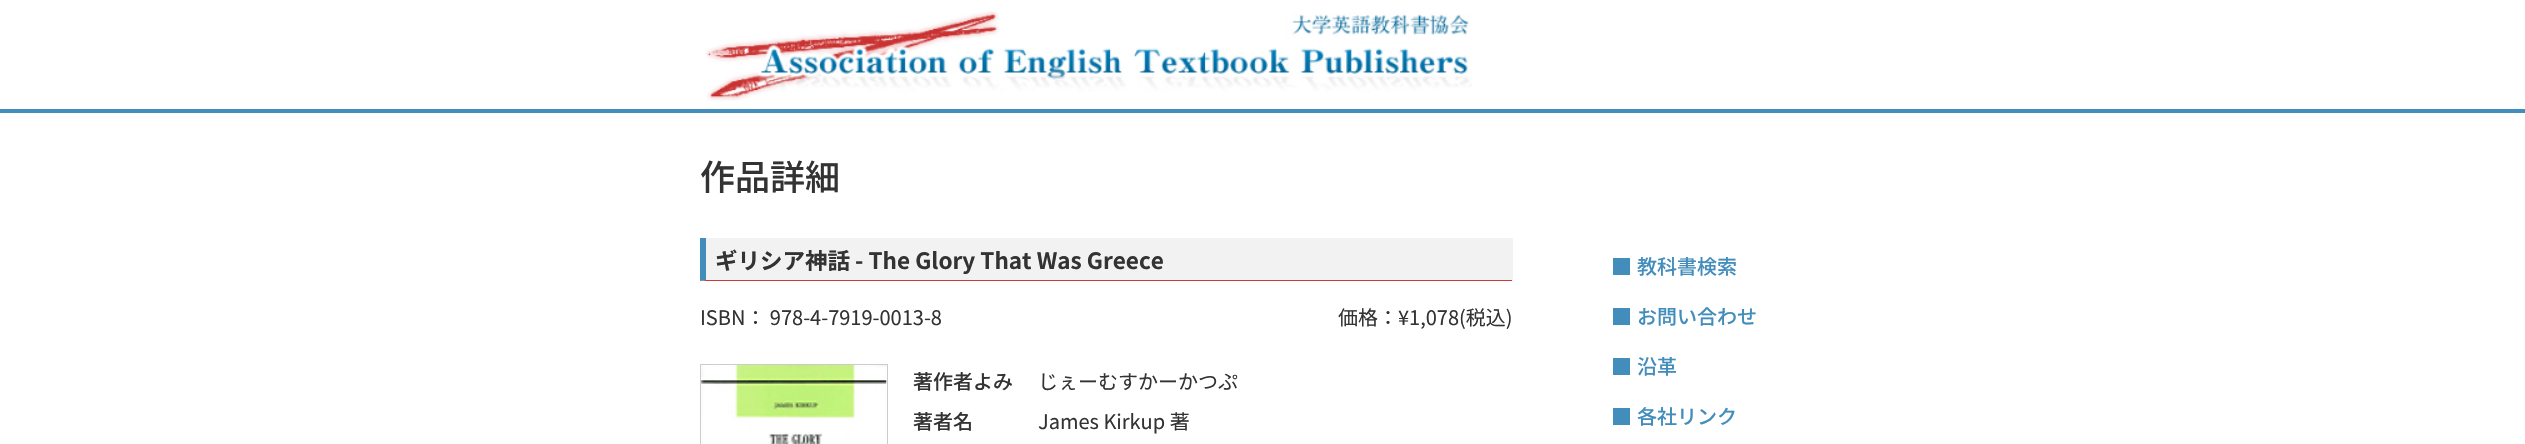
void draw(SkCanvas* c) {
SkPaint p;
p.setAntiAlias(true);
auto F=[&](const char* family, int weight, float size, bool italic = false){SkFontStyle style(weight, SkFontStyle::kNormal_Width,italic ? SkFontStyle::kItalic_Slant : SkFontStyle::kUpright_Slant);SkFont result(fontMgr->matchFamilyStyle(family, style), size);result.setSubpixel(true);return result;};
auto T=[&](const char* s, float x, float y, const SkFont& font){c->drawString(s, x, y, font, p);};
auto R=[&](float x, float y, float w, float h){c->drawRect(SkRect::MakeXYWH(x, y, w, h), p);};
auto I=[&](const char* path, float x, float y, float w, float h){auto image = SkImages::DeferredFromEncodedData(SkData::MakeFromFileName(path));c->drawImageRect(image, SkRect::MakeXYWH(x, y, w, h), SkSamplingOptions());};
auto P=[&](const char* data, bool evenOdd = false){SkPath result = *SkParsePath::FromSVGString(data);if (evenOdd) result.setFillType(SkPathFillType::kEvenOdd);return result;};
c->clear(0xffffffff);
p.setColor(0xff428dbc);
R(0,109,2525,4);
I("1.png",705,11,767,90);
auto f1 = F("Noto Sans JP",500,35);
p.setColor(0xff333333);
T("作品詳細",700,190,f1);
p.setColor(0xfff2f2f2);
R(700,238,813,43);
p.setColor(0xffcc393a);
c->drawPath(P("M1512 281h-812l6-1h806z"),p);
p.setColor(0xff428dbc);
c->drawPath(P("M700 281v-43h6v42z"),p);
auto f2 = F("Noto Sans JP",700,22.5);
p.setColor(0xff333333);
T("ギリシア神話 - The Glory That Was Greece",715,269,f2);
auto f3 = F("Noto Sans JP",400,20);
T("ISBN： 978-4-7919-0013-8",700,325,f3);
T("価格：¥1,078(税込)",1338,325,f3);
p.setStroke(true);
p.setStrokeWidth(1);
p.setColor(0xffcccccc);
c->drawRect(SkRect::MakeXYWH(700.5,364.5,187,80),p);
I("2.png",701,365,186,79);
auto f4 = F("Noto Sans JP",500,20);
p.setStroke(false);
p.setColor(0xff333333);
T("著作者よみ",913,389,f4);
T("じぇーむすかーかつぷ",1038,389,f3);
T("著者名",913,429,f4);
T("James Kirkup 著",1038,429,f3);
p.setColor(0xff428dbc);
R(1613,258,17,17);
T("教科書検索",1637,274,f4);
R(1613,308,17,17);
T("お問い合わせ",1637,324,f4);
R(1613,358,17,17);
T("沿革",1637,374,f4);
R(1613,408,17,17);
T("各社リンク",1637,424,f4);
}
